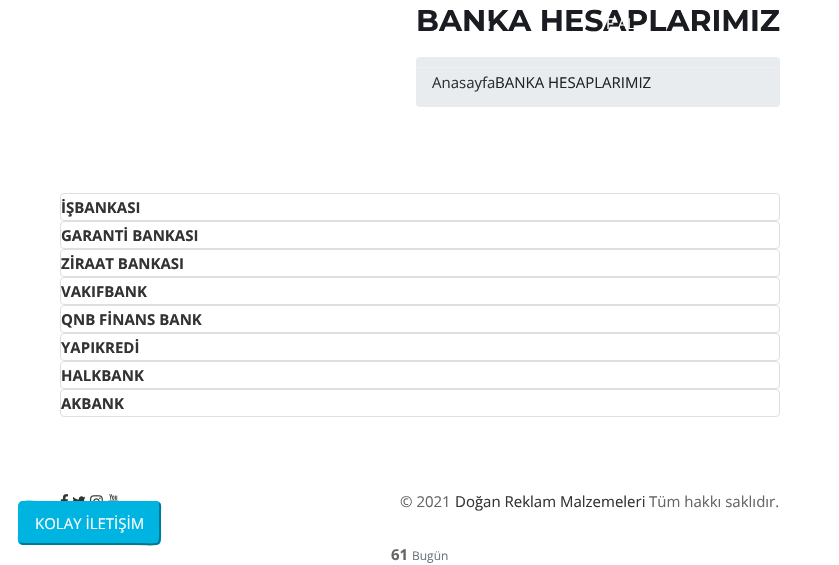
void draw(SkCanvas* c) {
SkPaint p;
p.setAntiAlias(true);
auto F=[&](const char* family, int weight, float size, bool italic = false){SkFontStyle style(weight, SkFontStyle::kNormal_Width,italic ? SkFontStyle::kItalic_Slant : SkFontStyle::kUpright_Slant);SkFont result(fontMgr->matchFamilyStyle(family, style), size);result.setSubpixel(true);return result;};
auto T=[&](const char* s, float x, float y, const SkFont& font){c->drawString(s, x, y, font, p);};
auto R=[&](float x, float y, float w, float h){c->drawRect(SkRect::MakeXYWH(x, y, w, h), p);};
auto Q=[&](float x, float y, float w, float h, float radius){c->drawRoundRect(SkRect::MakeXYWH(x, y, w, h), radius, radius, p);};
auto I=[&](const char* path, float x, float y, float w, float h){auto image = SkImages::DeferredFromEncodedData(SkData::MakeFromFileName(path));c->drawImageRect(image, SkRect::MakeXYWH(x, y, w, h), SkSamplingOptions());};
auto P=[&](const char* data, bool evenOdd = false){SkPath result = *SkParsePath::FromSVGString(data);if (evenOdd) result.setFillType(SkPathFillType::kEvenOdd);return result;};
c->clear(0xffffffff);
auto f1 = F("Montserrat",700,30);
p.setColor(0xff1b1c21);
T("BANKA HESAPLARIMIZ",416,31,f1);
p.setColor(0xffe9ecef);
Q(416,57,364,50,4);
p.setColor(0xffedeff2);
R(416,67,364,1);
auto f2 = F("Open Sans",400,15);
p.setColor(0xff333333);
T("Anasayfa",432,88,f2);
p.setColor(0xff212529);
T("BANKA HESAPLARIMIZ",495,88,f2);
p.setColor(0xffffffff);
T("ı",487,29,f2);
T("F AL",606,29,f2);
p.setStroke(true);
p.setStrokeWidth(1);
p.setColor(0xffdfdfdf);
c->drawRoundRect(SkRect::MakeXYWH(60.5,193.5,719,27),3.5,3.5,p);
auto f3 = F("Open Sans",700,15);
p.setStroke(false);
p.setColor(0xff333333);
T("İŞBANKASI",61,213,f3);
p.setStroke(true);
p.setColor(0xffdfdfdf);
c->drawRoundRect(SkRect::MakeXYWH(60.5,221.5,719,27),3.5,3.5,p);
p.setStroke(false);
p.setColor(0xff333333);
T("GARANTİ BANKASI",61,241,f3);
p.setStroke(true);
p.setColor(0xffdfdfdf);
c->drawRoundRect(SkRect::MakeXYWH(60.5,249.5,719,27),3.5,3.5,p);
p.setStroke(false);
p.setColor(0xff333333);
T("ZİRAAT BANKASI",61,269,f3);
p.setStroke(true);
p.setColor(0xffdfdfdf);
c->drawRoundRect(SkRect::MakeXYWH(60.5,277.5,719,27),3.5,3.5,p);
p.setStroke(false);
p.setColor(0xff333333);
T("VAKIFBANK",61,297,f3);
p.setStroke(true);
p.setColor(0xffdfdfdf);
c->drawRoundRect(SkRect::MakeXYWH(60.5,305.5,719,27),3.5,3.5,p);
p.setStroke(false);
p.setColor(0xff333333);
T("QNB FİNANS BANK",61,325,f3);
p.setStroke(true);
p.setColor(0xffdfdfdf);
c->drawRoundRect(SkRect::MakeXYWH(60.5,333.5,719,27),3.5,3.5,p);
p.setStroke(false);
p.setColor(0xff333333);
T("YAPIKREDİ",61,353,f3);
p.setStroke(true);
p.setColor(0xffdfdfdf);
c->drawRoundRect(SkRect::MakeXYWH(60.5,361.5,719,27),3.5,3.5,p);
p.setStroke(false);
p.setColor(0xff333333);
T("HALKBANK",61,381,f3);
p.setStroke(true);
p.setColor(0xffdfdfdf);
c->drawRoundRect(SkRect::MakeXYWH(60.5,389.5,719,27),3.5,3.5,p);
p.setStroke(false);
p.setColor(0xff333333);
T("AKBANK",61,409,f3);
p.setColor(0xff00b4e1);
Q(18,501,143,44,5);
p.setStroke(true);
p.setStrokeWidth(2);
p.setColor(0xff007896);
c->drawPath(P("M159 503c2 2 1 6.5 1 8.5v11.5c0 26.5 3.5 21-26 21h-111l-3-1"),p);
I("1.png",60,494,9,7);
I("2.png",72,496,14,5);
I("3.png",90,495,13,6);
I("4.png",108,494,11,7);
p.setColor(0xff00b4e1);
c->drawPath(P("M20 543c-2-2-1-6.5-1-8.5v-11.5c0-26.5-3.5-21 26-21h111l3 1"),p);
p.setStroke(false);
p.setColor(0xffffffff);
T("KOLAY İLETİŞİM",35,529,f2);
p.setColor(0xff666666);
T("© 2021",400,507,f2);
p.setColor(0xff333333);
T("Doğan Reklam Malzemeleri",455,507,f2);
p.setColor(0xff666666);
T("Tüm hakkı saklıdır.",649,507,f2);
T("61",391,560,f3);
auto f4 = F("Open Sans",400,12);
p.setColor(0xff6c757d);
T("Bugün",412,560,f4);
}
